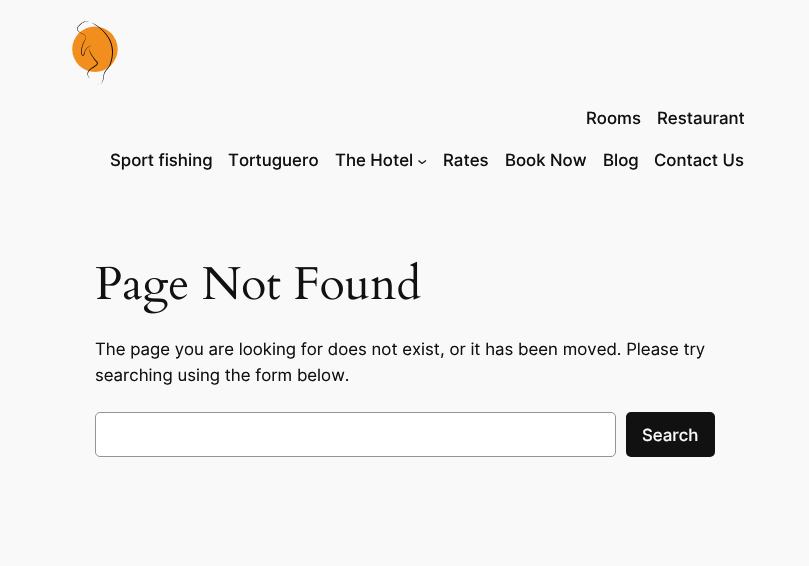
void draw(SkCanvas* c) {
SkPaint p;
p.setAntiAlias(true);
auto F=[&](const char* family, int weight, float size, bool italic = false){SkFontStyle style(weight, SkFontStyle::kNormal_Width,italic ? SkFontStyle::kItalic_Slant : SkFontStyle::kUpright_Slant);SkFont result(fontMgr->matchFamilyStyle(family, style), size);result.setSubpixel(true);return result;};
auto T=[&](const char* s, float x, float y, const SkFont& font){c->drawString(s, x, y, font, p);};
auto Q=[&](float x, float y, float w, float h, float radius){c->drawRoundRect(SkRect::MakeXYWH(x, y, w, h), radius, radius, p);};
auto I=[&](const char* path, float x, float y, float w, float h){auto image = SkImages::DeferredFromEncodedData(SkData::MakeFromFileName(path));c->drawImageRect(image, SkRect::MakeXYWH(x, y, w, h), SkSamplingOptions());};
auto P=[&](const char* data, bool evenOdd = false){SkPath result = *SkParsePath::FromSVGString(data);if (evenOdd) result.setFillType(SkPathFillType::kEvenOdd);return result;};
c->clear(0xfff9f9f9);
I("1.png",72,21,46,64);
auto f1 = F("Inter",500,16.8);
p.setColor(0xff111111);
T("Rooms",586,124,f1);
T("Restaurant",657,124,f1);
T("Sport fishing",110,166,f1);
T("Tortuguero",228,166,f1);
T("The Hotel",335,166,f1);
p.setStroke(true);
p.setStrokeWidth(1.3);
c->drawPath(P("M418.5 160.5l3.5 3l4-3"),p);
p.setStroke(false);
T("Rates",443,166,f1);
T("Book Now",505,166,f1);
T("Blog",603,166,f1);
T("Contact Us",654,166,f1);
I("2.png",95,261,326,53);
auto f2 = F("Inter",400,16.8);
T("The page you are looking for does not exist, or it has been moved. Please try",95,355,f2);
T("searching using the form below.",95,381,f2);
p.setColor(0xffffffff);
c->drawRoundRect(SkRect::MakeXYWH(95.5,412.5,520,44),4.5,4.5,p);
p.setStroke(true);
p.setStrokeWidth(1);
p.setColor(0xff949494);
c->drawRoundRect(SkRect::MakeXYWH(95.5,412.5,520,44),4.5,4.5,p);
p.setStroke(false);
p.setColor(0xff111111);
Q(626,412,89,45,5);
p.setColor(0xfff9f9f9);
T("Search",642,441,f1);
}
